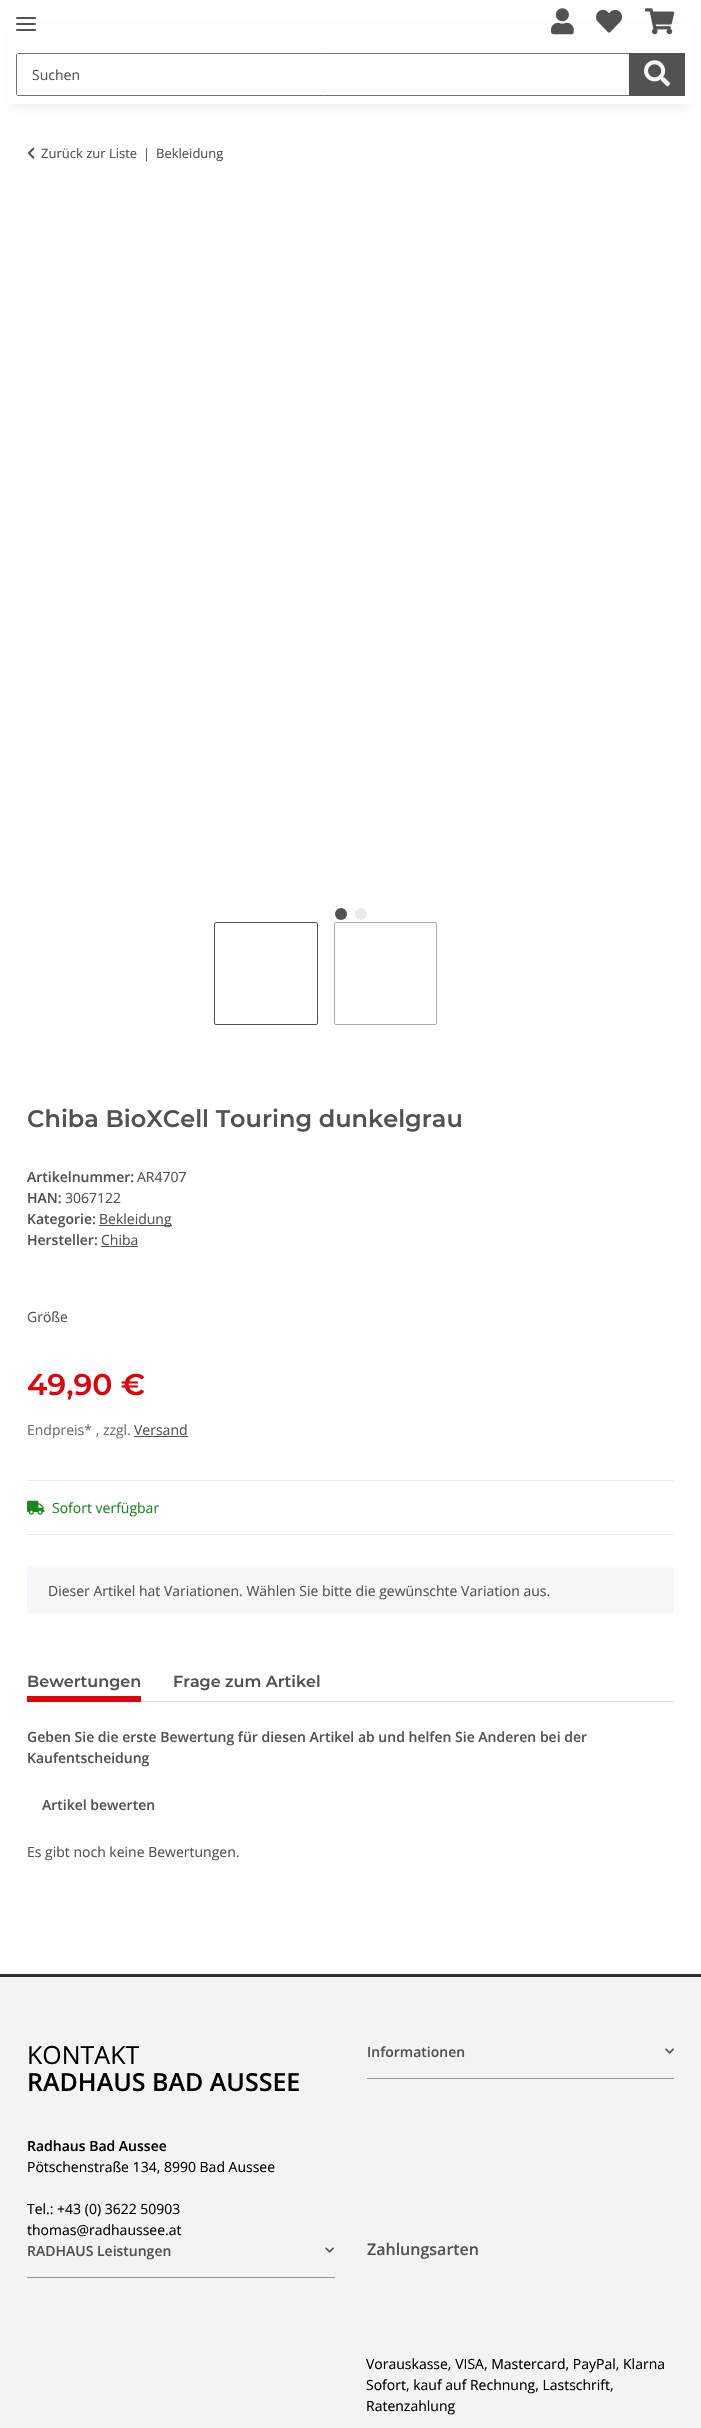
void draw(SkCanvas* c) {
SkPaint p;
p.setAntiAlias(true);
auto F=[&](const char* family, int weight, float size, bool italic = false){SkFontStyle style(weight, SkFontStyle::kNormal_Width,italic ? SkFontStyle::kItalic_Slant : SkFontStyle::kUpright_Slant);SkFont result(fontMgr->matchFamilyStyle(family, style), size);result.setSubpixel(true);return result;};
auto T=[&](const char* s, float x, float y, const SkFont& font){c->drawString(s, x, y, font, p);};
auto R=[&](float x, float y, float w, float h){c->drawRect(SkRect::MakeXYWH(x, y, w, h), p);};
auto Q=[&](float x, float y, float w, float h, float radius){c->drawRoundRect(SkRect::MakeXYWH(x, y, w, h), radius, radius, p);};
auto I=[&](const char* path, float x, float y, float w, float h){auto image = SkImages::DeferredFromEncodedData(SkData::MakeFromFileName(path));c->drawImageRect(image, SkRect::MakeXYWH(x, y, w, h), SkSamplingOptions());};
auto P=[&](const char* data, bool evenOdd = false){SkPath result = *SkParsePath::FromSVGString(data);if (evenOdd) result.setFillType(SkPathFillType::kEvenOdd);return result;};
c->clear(0xffffffff);
p.setColor(0x0f000000);
p.setMaskFilter(SkMaskFilter::MakeBlur(kNormal_SkBlurStyle, 4.5));
c->drawRect(SkRect::MakeXYWH(12,28,677,80),p);
p.setMaskFilter(nullptr);
p.setColor(0xffffffff);
R(8,24,685,80);
p.setColor(0xff525252);
Q(16,23,20,2,1);
Q(16,17,20,2,1);
Q(16,29,20,2,1);
I("1.png",551,8,23,27);
I("2.png",596,9,27,24);
I("3.png",645,8,30,27);
p.setStroke(true);
p.setStrokeWidth(1);
p.setColor(0xff707070);
c->drawPath(P("M18 53.5h611.5v42h-611.5c-1 0-1.5-.5-1.5-1.5v-39c0-1 .5-1.5 1.5-1.5z"),p);
auto f1 = F("Open Sans",400,14);
p.setStroke(false);
p.setColor(0xff525252);
T("Suchen",32,80,f1);
R(629,53,56,43);
I("4.png",644,60,26,27);
I("5.png",27,147,8,12);
auto f2 = F("Open Sans",400,13);
T("Zurück zur Liste",41,158,f2);
T("|",143,158,f2);
T("Bekleidung",156,158,f2);
c->drawCircle(341,914,6,p);
p.setColor(0xffebebeb);
c->drawCircle(361,914,6,p);
p.setStroke(true);
p.setColor(0xff525252);
c->drawRoundRect(SkRect::MakeXYWH(214.5,922.5,103,102),1.5,1.5,p);
p.setColor(0xffa9a9a9);
c->drawRoundRect(SkRect::MakeXYWH(334.5,922.5,102,102),1.5,1.5,p);
auto f3 = F("Montserrat",600,24);
p.setStroke(false);
p.setColor(0xff525252);
T("Chiba BioXCell Touring dunkelgrau",27,1127,f3);
auto f4 = F("Open Sans",600,14);
T("Artikelnummer:",27,1182,f4);
T("AR4707",137,1182,f1);
T("HAN:",27,1203,f4);
T("3067122",65,1203,f1);
T("Kategorie:",27,1224,f4);
R(99,1225,73,1);
T("Bekleidung",99,1224,f1);
T("Hersteller:",27,1245,f4);
T("Chiba",101,1245,f1);
R(101,1246,37,1);
T("Größe",27,1322,f1);
auto f5 = F("Montserrat",600,30);
p.setColor(0xffe0030c);
T("49,90 €",27,1395,f5);
p.setColor(0xff707070);
T("Endpreis* , zzgl.",27,1435,f1);
p.setColor(0xff525252);
T("Versand",134,1435,f1);
R(134,1436,54,1);
p.setColor(0xffebebeb);
R(27,1480,647,1);
R(27,1534,647,1);
I("6.png",27,1500,18,15);
p.setColor(0xff1c871e);
T("Sofort verfügbar",52,1513,f1);
p.setColor(0xfff5f7fa);
Q(27,1567,647,47,2);
p.setColor(0xff525252);
T("Dieser Artikel hat Variationen. Wählen Sie bitte die gewünschte Variation aus.",48,1596,f1);
p.setColor(0xffdee2e6);
R(141,1701,533,1);
auto f6 = F("Montserrat",600,16);
p.setColor(0xff525252);
T("Bewertungen",27,1687,f6);
p.setColor(0xffe0030c);
R(27,1696,114,6);
p.setColor(0xff525252);
T("Frage zum Artikel",173,1687,f6);
T("Geben Sie die erste Bewertung für diesen Artikel ab und helfen Sie Anderen bei der",27,1742,f4);
T("Kaufentscheidung",27,1763,f4);
T("Artikel bewerten",42,1810,f4);
T("Es gibt noch keine Bewertungen.",27,1857,f1);
p.setColor(0xfff3f3f3);
R(0,1977,701,451);
p.setColor(0xff302f2f);
R(0,1974,701,3);
auto f7 = F("Open Sans",400,25);
p.setColor(0xff000000);
T("KONTAKT",27,2064,f7);
auto f8 = F("Open Sans",600,25);
T("RADHAUS BAD AUSSEE",27,2091,f8);
T("Radhaus Bad Aussee",27,2151,f4);
T("Pötschenstraße 134, 8990 Bad Aussee",27,2172,f1);
T("Tel.: +43 (0) 3622 50903",27,2214,f1);
T("thomas@radhaussee.at",27,2235,f1);
p.setColor(0xff525252);
T("Informationen",367,2057,f4);
I("7.png",665,2048,9,6);
p.setColor(0xff929292);
R(367,2078,307,1);
p.setColor(0xff525252);
T("RADHAUS Leistungen",27,2256,f4);
I("7.png",325,2247,9,6);
p.setColor(0xff929292);
R(27,2277,308,1);
auto f9 = F("Open Sans",600,16);
p.setColor(0xff525252);
T("Zahlungsarten",367,2255,f9);
p.setColor(0xff000000);
T("Vorauskasse, VISA, Mastercard, PayPal, Klarna",366,2369,f1);
T("Sofort, kauf auf Rechnung, Lastschrift,",366,2390,f1);
T("Ratenzahlung",366,2411,f1);
}
